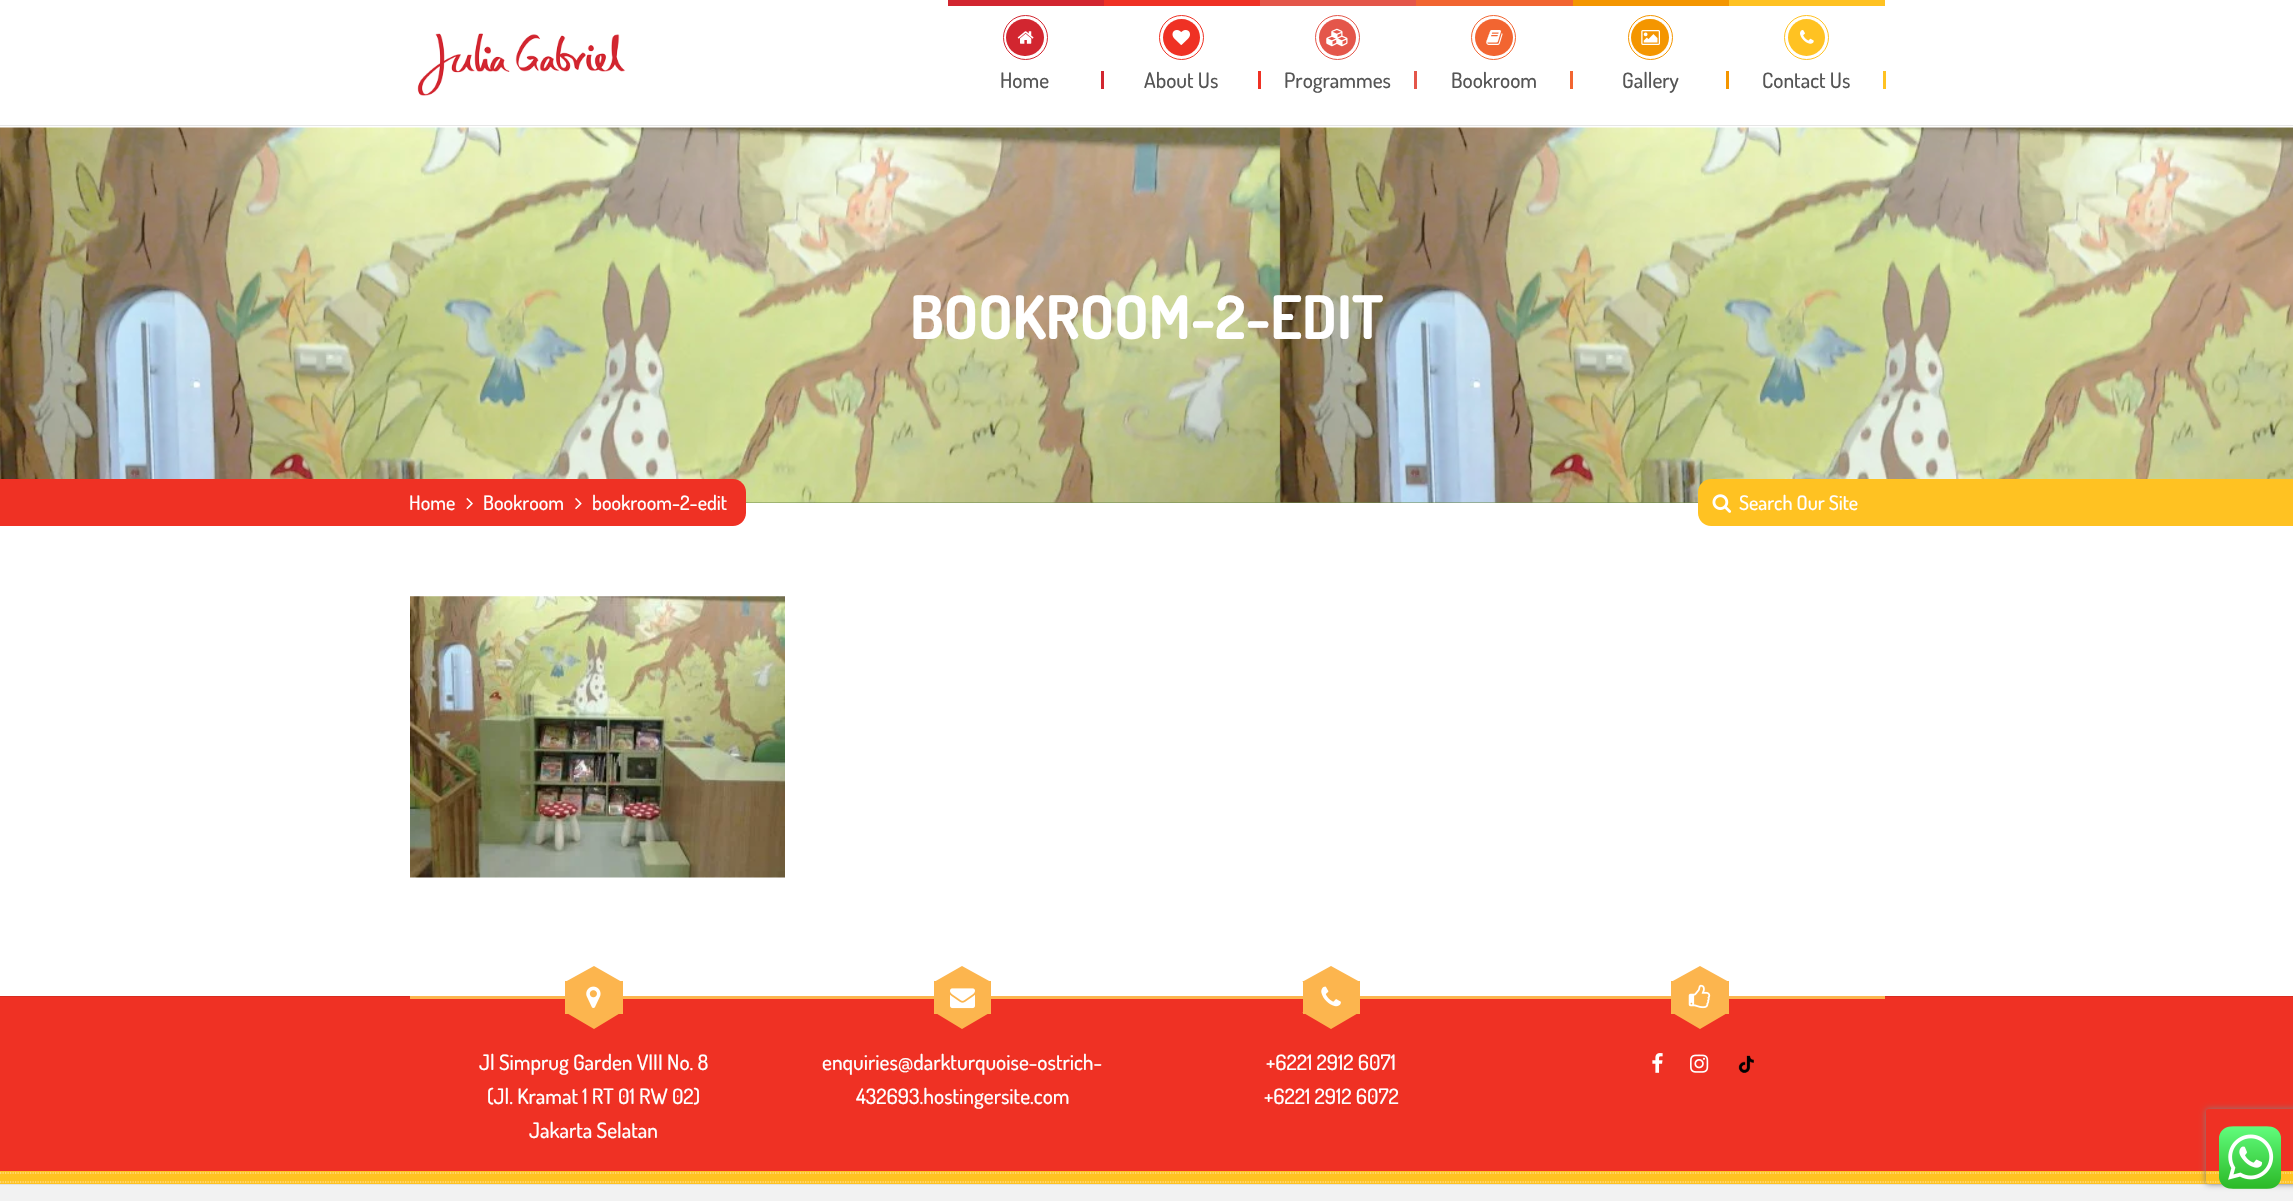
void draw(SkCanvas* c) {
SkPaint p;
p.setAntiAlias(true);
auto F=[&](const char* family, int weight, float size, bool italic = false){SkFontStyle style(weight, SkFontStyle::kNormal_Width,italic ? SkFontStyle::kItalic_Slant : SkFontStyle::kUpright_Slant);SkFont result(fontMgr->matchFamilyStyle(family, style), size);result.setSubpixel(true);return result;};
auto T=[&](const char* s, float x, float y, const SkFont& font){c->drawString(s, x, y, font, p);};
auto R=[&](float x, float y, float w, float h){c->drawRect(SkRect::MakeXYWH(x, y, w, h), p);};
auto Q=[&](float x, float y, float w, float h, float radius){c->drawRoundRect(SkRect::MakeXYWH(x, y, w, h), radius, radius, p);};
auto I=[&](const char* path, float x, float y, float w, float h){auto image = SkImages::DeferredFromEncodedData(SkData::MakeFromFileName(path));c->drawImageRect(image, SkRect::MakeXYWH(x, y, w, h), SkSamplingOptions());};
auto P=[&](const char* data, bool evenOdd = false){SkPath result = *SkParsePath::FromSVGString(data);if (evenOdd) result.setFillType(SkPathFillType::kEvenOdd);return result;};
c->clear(0xffffffff);
p.setColor(0xffe6e6e6);
R(0,125,2293,1);
I("1.png",417,33,209,63);
p.setColor(0xffd22630);
R(948,0,156,6);
Q(1006,19,38,37,18.5);
p.setStroke(true);
p.setStrokeWidth(1);
c->drawCircle(1025.5,37.5,22,p);
I("2.png",1017,31,17,13);
auto f1 = F("Dosis",500,21.25);
p.setStroke(false);
p.setColor(0xff555555);
T("Home",1000,88,f1);
p.setColor(0xffd22630);
R(1101,71,3,18);
p.setColor(0xffef3124);
R(1104,0,156,6);
c->drawCircle(1181.5,37.5,18.5,p);
p.setStroke(true);
c->drawCircle(1181.5,37.5,22,p);
I("3.png",1172,30,18,15);
p.setStroke(false);
p.setColor(0xff555555);
T("About Us",1144,88,f1);
p.setColor(0xffef3124);
R(1258,71,3,18);
p.setColor(0xffe4564a);
R(1260,0,156,6);
c->drawCircle(1337.5,37.5,18.5,p);
p.setStroke(true);
c->drawCircle(1337.5,37.5,22,p);
I("4.png",1326,28,22,19);
p.setStroke(false);
p.setColor(0xff555555);
T("Programmes",1284,88,f1);
p.setColor(0xffe4564a);
R(1414,71,3,18);
p.setColor(0xfff26531);
R(1416,0,157,6);
Q(1475,19,38,37,18.5);
p.setStroke(true);
c->drawCircle(1493.5,37.5,22,p);
I("5.png",1486,30,17,15);
p.setStroke(false);
p.setColor(0xff555555);
T("Bookroom",1451,88,f1);
p.setColor(0xfff26531);
R(1570,71,3,18);
p.setColor(0xfff49600);
R(1573,0,156,6);
Q(1631,19,38,37,18.5);
p.setStroke(true);
c->drawCircle(1650.5,37.5,22,p);
I("6.png",1641,30,19,15);
p.setStroke(false);
p.setColor(0xff555555);
T("Gallery",1622,88,f1);
p.setColor(0xfff49600);
R(1726,71,3,18);
p.setColor(0xffffc222);
R(1729,0,156,6);
c->drawCircle(1806.5,37.5,18.5,p);
p.setStroke(true);
c->drawCircle(1806.5,37.5,22,p);
I("7.png",1800,30,14,14);
p.setStroke(false);
p.setColor(0xff555555);
T("Contact Us",1762,88,f1);
p.setColor(0xffffc222);
R(1883,71,3,18);
p.setColor(0xff6e8b49);
R(746,502,952,1);
I("8.png",0,127,2293,376);
auto f2 = F("Dosis",700,60);
p.setColor(0xffffffff);
T("BOOKROOM-2-EDIT",910,339,f2);
p.setColor(0xffef3124);
R(0,479,410,47);
c->drawPath(P("M410 479h323c7 0 13 6 13 13v21c0 7-6 13-13 13h-323z"),p);
auto f3 = F("Dosis",500,20);
p.setColor(0xffffffff);
T("Home",409,510,f3);
I("9.png",466,498,7,12);
T("Bookroom",483,510,f3);
I("10.png",575,498,7,12);
T("bookroom-2-edit",592,510,f3);
p.setColor(0xffffc222);
c->drawPath(P("M1711 479h174v47h-174c-7 0-13-6-13-13v-21c0-7 6-13 13-13z"),p);
I("11.png",1712,494,20,19);
p.setColor(0xffffffff);
T("Search Our Site",1739,510,f3);
p.setColor(0xffffc222);
R(1885,479,408,47);
I("12.png",410,596,375,282);
p.setColor(0xffef3124);
R(0,997,2293,174);
p.setColor(0xffd72c20);
R(0,996,2293,1);
p.setColor(0xfffcb54e);
R(410,996,1475,3);
R(1671,981,58,33);
I("13.png",1688,984,23,25);
c->drawPath(P("M1729 982h-58l29-16zm-58 30h58l-29 17z"),p);
I("14.png",1652,1053,11,20);
I("15.png",1690,1054,19,19);
I("16.png",1738,1055,16,19);
R(565,981,58,33);
I("17.png",586,986,15,22);
c->drawPath(P("M622 982h-57l29-16zm-57 30h57l-28 17z"),p);
p.setColor(0xffffffff);
T("Jl Simprug Garden VIII No. 8",479,1070,f1);
T("(Jl. Kramat 1 RT 01 RW 02)",487,1104,f1);
T("Jakarta Selatan",529,1138,f1);
p.setColor(0xfffcb54e);
R(934,981,57,33);
I("18.png",950,988,25,21);
c->drawPath(P("M991 982h-57l28-16zm-57 30h57l-29 17z"),p);
p.setColor(0xffffffff);
T("enquiries@darkturquoise-ostrich-",822,1070,f1);
T("432693.hostingersite.com",856,1104,f1);
p.setColor(0xfffcb54e);
R(1303,981,57,33);
I("19.png",1321,986,20,21);
c->drawPath(P("M1360 982h-58l29-16zm-58 30h58l-29 17z"),p);
p.setColor(0xffffffff);
T("+6221 2912 6071",1266,1070,f1);
T("+6221 2912 6072",1264,1104,f1);
p.setColor(0xffffc222);
R(0,1171,2293,13);
p.setStroke(true);
p.setStrokeWidth(1.2);
p.setColor(0xffffedbd);
p.setPathEffect(SkDashPathEffect::Make({{1.25f,1.25f}}, 0));
c->drawPath(P("M0 1173h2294"),p);
p.setPathEffect(nullptr);
p.setPathEffect(SkDashPathEffect::Make({{1.25f,1.25f}}, 0));
c->drawPath(P("M0 1182h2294"),p);
p.setPathEffect(nullptr);
p.setStroke(false);
p.setColor(0xfff2f2f2);
R(0,1185,2293,16);
p.setColor(0xffe3e3e3);
R(0,1184,2293,1);
c->save();
c->clipPath(P("M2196 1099h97v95h-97zm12.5 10h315c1.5 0 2.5 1 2.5 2.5v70c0 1.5-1 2.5-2.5 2.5h-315c-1.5 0-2.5-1-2.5-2.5v-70c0-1.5 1-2.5 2.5-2.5z",true),true);
p.setColor(0xff808080);
p.setMaskFilter(SkMaskFilter::MakeBlur(kNormal_SkBlurStyle, 3));
c->drawRoundRect(SkRect::MakeXYWH(2206,1109,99,75),2.5,2.5,p);
p.setMaskFilter(nullptr);
c->restore();
I("20.png",2219,1126,62,63);
}
